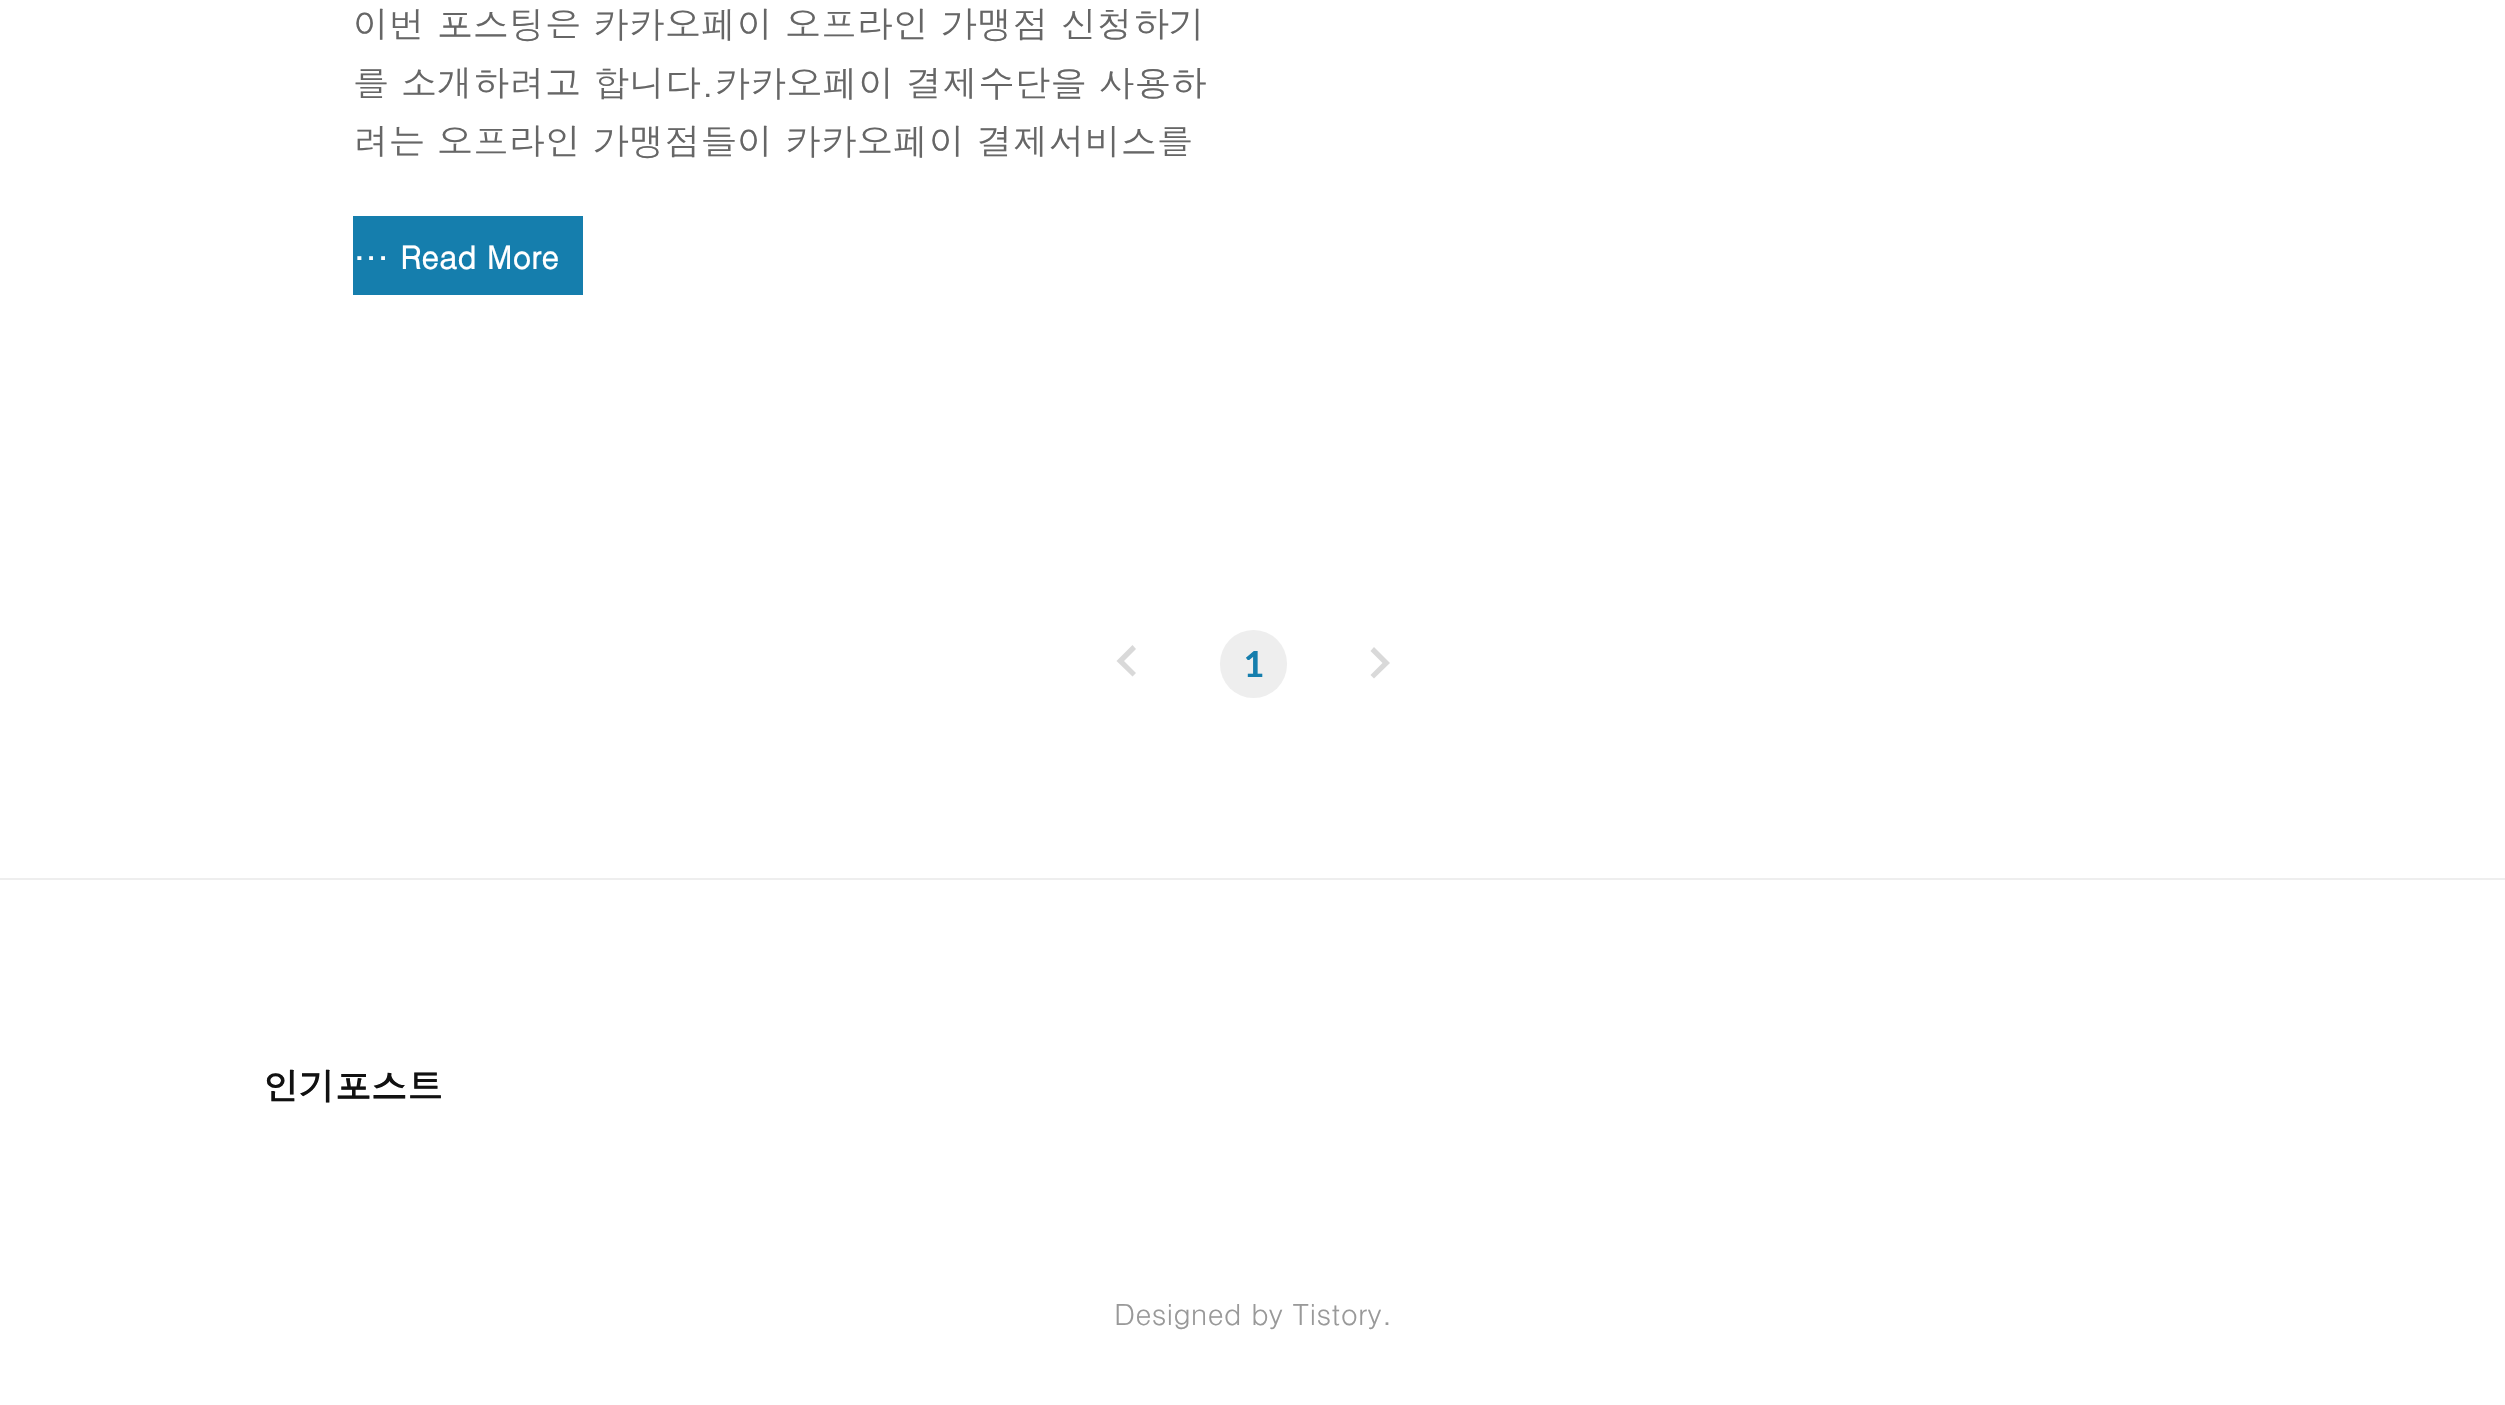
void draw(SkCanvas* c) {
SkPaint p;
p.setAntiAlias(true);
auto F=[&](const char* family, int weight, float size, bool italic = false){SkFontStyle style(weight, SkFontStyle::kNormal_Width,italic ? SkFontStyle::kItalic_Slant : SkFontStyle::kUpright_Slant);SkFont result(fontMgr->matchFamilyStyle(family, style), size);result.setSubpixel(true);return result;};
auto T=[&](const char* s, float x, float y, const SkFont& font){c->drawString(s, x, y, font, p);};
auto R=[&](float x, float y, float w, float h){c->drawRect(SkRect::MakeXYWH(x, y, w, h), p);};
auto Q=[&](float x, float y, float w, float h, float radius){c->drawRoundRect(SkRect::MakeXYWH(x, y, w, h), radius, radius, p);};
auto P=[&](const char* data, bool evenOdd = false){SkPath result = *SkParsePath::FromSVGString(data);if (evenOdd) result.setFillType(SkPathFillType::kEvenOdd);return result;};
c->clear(0xffffffff);
auto f1 = F("Dotum",400,36);
p.setColor(0xff666666);
T("이번 포스팅은 카카오페이 오프라인 가맹점 신청하기",353,38,f1);
T("를 소개하려고 합니다.카카오페이 결제수단을 사용하",353,97,f1);
T("려는 오프라인 가맹점들이 카카오페이 결제서비스를",353,155,f1);
p.setColor(0xff157ead);
R(353,216,230,79);
auto f2 = F("Dotum",700,31.5);
p.setColor(0xffffffff);
T("...",353,260,f2);
T("Read More",400,269,f2);
p.setColor(0xffd9d9d9);
c->drawPath(P("M1136 649l-3.5-4l-16 16l16 15.5l3.5-3.5l-12-12z"),p);
p.setColor(0xffeeeeee);
Q(1220,630,67,68,33.5);
auto f3 = F("Lato",700,36);
p.setColor(0xff157ead);
T("1",1243,677,f3);
p.setColor(0xffd9d9d9);
c->drawPath(P("M1370.5 675l12-12l-12-12l3.5-4l16 16l-16 15.5z"),p);
p.setColor(0xffeeeeee);
R(0,878,2505,2);
auto f4 = F("Dotum",700,36);
p.setColor(0xff111111);
T("인기포스트",263,1100,f4);
auto f5 = F("Dotum",400,29.25);
p.setColor(0xff999999);
T("Designed by Tistory.",1114,1325,f5);
}
